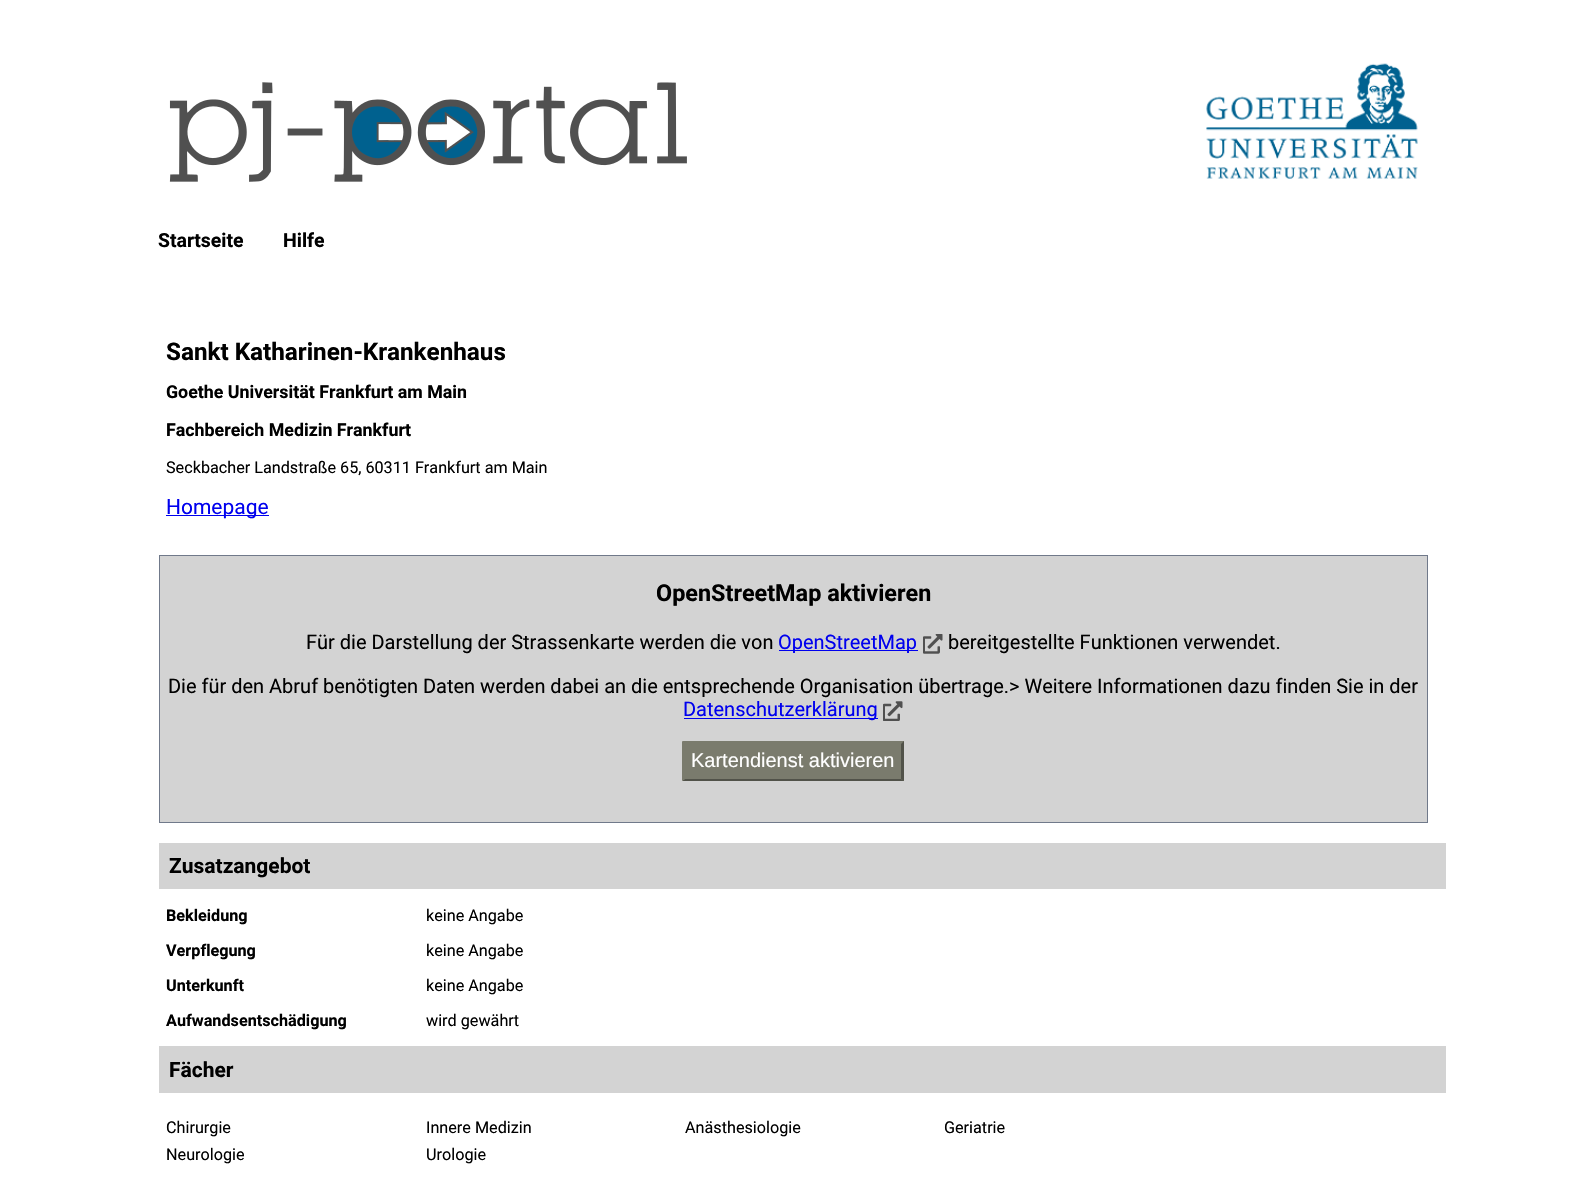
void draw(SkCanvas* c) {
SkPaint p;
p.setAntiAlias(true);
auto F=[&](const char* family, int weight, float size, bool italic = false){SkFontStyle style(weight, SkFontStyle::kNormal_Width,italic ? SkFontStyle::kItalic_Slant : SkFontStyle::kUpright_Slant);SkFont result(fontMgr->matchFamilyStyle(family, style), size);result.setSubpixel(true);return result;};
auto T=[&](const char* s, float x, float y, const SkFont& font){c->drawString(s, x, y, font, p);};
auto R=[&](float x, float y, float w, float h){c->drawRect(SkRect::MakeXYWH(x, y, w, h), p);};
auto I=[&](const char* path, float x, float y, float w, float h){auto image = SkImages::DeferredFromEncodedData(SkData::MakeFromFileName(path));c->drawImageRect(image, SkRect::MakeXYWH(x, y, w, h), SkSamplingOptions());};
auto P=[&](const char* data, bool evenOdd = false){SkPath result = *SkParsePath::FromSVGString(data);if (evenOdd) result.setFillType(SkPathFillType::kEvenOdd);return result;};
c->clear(0xffffffff);
p.setColor(0xff00618f);
R(352,106,126,53);
I("1.png",159,65,544,125);
I("2.png",1206,63,212,116);
auto f1 = F("Roboto",700,19.5);
p.setColor(0xff000000);
T("Startseite",158,247,f1);
T("Hilfe",283,247,f1);
auto f2 = F("Roboto",700,24.25);
T("Sankt Katharinen-Krankenhaus",166,360,f2);
auto f3 = F("Roboto",700,17.8);
T("Goethe Universität Frankfurt am Main",166,398,f3);
T("Fachbereich Medizin Frankfurt",166,436,f3);
auto f4 = F("Roboto",400,16.2);
T("Seckbacher Landstraße 65, 60311 Frankfurt am Main",166,473,f4);
p.setColor(0xff0000ee);
R(166,515,103,1);
auto f5 = F("Roboto",400,21);
T("Homepage",166,514,f5);
p.setColor(0xffd3d3d3);
c->drawRect(SkRect::MakeXYWH(159.5,555.5,1268,267),p);
p.setStroke(true);
p.setStrokeWidth(1);
p.setColor(0xff70798a);
c->drawRect(SkRect::MakeXYWH(159.5,555.5,1268,267),p);
auto f6 = F("Roboto",700,23.4);
p.setStroke(false);
p.setColor(0xff000000);
T("OpenStreetMap aktivieren",656,601,f6);
auto f7 = F("Roboto",400,20);
T("Für die Darstellung der Strassenkarte werden die von",306,649,f7);
p.setColor(0xff0000ee);
R(779,650,139,1);
T("OpenStreetMap",778,649,f7);
I("3.png",923,634,20,20);
p.setColor(0xff000000);
T("bereitgestellte Funktionen verwendet.",948,649,f7);
T("Die für den Abruf benötigten Daten werden dabei an die entsprechende Organisation übertrage.> Weitere Informationen dazu finden Sie in der",168,693,f7);
p.setColor(0xff0000ee);
R(684,718,194,1);
T("Datenschutzerklärung",683,716,f7);
I("4.png",883,701,20,20);
p.setColor(0xff7a7b6d);
R(683,741,221,40);
c->drawPath(P("M682 741h222l-3 3h-216z"),p);
p.setColor(0xff515249);
c->drawPath(P("M904 741v40l-3-2v-35z"),p);
c->drawPath(P("M904 781h-222l3-2h216z"),p);
p.setColor(0xff7a7b6d);
c->drawPath(P("M682 781v-40l3 3v35z"),p);
auto f8 = F("Liberation Sans",400,20);
p.setColor(0xffffffff);
T("Kartendienst aktivieren",691,767,f8);
p.setColor(0xffd3d3d3);
R(159,843,1287,46);
auto f9 = F("Roboto",700,21);
p.setColor(0xff000000);
T("Zusatzangebot",169,873,f9);
auto f10 = F("Roboto",700,16.2);
T("Bekleidung",166,921,f10);
T("keine Angabe",426,921,f4);
T("Verpflegung",166,956,f10);
T("keine Angabe",426,956,f4);
T("Unterkunft",166,991,f10);
T("keine Angabe",426,991,f4);
T("Aufwandsentschädigung",166,1026,f10);
T("wird gewährt",426,1026,f4);
p.setColor(0xffd3d3d3);
R(159,1046,1287,47);
p.setColor(0xff000000);
T("Fächer",169,1077,f9);
T("Chirurgie",166,1133,f4);
T("Innere Medizin",426,1133,f4);
T("Anästhesiologie",685,1133,f4);
T("Geriatrie",944,1133,f4);
T("Neurologie",166,1160,f4);
T("Urologie",426,1160,f4);
}
